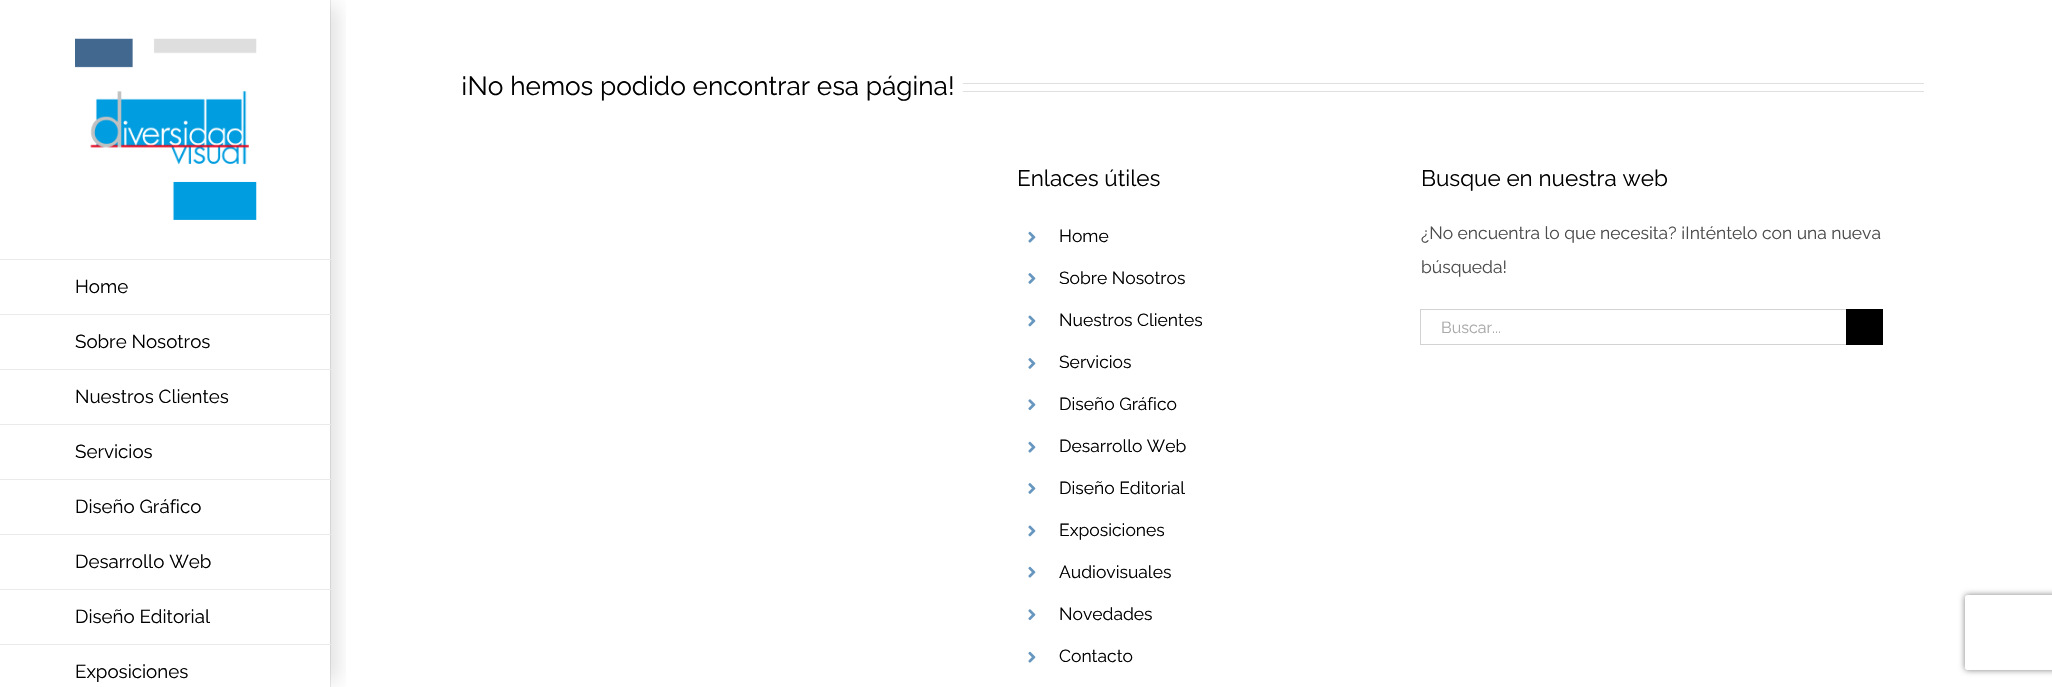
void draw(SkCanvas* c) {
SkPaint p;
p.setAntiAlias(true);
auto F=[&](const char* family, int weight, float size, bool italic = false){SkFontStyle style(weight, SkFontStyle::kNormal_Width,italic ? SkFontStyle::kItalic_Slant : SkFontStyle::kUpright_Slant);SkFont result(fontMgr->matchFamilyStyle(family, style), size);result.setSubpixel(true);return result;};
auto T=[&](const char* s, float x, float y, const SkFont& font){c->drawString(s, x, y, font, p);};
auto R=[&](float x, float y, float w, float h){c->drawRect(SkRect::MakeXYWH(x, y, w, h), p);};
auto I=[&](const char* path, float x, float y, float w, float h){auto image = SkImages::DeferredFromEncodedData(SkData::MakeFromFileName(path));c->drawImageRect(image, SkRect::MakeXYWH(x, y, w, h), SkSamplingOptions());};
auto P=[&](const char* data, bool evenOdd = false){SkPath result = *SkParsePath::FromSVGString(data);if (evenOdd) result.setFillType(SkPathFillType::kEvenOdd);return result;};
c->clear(0xffffffff);
I("1.png",75,38,182,182);
p.setColor(0xffeaeaea);
R(330,0,1,687);
c->save();
c->clipRect(SkRect::MakeXYWH(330,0,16,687));
p.setColor(0x24000000);
p.setMaskFilter(SkMaskFilter::MakeBlur(kNormal_SkBlurStyle, 9.5));
c->drawRect(SkRect::MakeXYWH(318,6,18,675),p);
p.setMaskFilter(nullptr);
c->restore();
p.setColor(0xffeaeaea);
R(0,259,331,1);
R(0,314,331,1);
auto f1 = F("Raleway",400,18.75);
p.setColor(0xff000000);
T("Home",75,293,f1);
p.setColor(0xffeaeaea);
R(0,369,331,1);
p.setColor(0xff000000);
T("Sobre Nosotros",75,348,f1);
p.setColor(0xffeaeaea);
R(0,424,331,1);
p.setColor(0xff000000);
T("Nuestros Clientes",75,403,f1);
p.setColor(0xffeaeaea);
R(0,479,331,1);
p.setColor(0xff000000);
T("Servicios",75,458,f1);
p.setColor(0xffeaeaea);
R(0,534,331,1);
p.setColor(0xff000000);
T("Diseño Gráfico",75,513,f1);
p.setColor(0xffeaeaea);
R(0,589,331,1);
p.setColor(0xff000000);
T("Desarrollo Web",75,568,f1);
p.setColor(0xffeaeaea);
R(0,644,331,1);
p.setColor(0xff000000);
T("Diseño Editorial",75,623,f1);
T("Exposiciones",75,678,f1);
auto f2 = F("Raleway",400,26.25);
T("¡No hemos podido encontrar esa página!",461,95,f2);
p.setColor(0xffe0dede);
R(963,83,961,1);
R(963,91,961,1);
auto f3 = F("Raleway",400,22.5);
p.setColor(0xff000000);
T("Enlaces útiles",1017,186,f3);
I("2.png",1028,231,8,12);
auto f4 = F("Raleway",400,17.5);
T("Home",1059,242,f4);
I("3.png",1028,273,8,11);
T("Sobre Nosotros",1059,284,f4);
I("4.png",1028,315,8,12);
T("Nuestros Clientes",1059,326,f4);
I("3.png",1028,358,8,11);
T("Servicios",1059,368,f4);
I("5.png",1028,399,8,12);
T("Diseño Gráfico",1059,410,f4);
I("2.png",1028,441,8,12);
T("Desarrollo Web",1059,452,f4);
I("3.png",1028,483,8,11);
T("Diseño Editorial",1059,494,f4);
I("4.png",1028,525,8,12);
T("Exposiciones",1059,536,f4);
I("2.png",1028,566,8,12);
T("Audiovisuales",1059,578,f4);
I("5.png",1028,609,8,12);
T("Novedades",1059,620,f4);
I("2.png",1028,651,8,12);
T("Contacto",1059,662,f4);
T("Busque en nuestra web",1421,186,f3);
p.setColor(0xff4c4c4c);
T("¿No encuentra lo que necesita? ¡Inténtelo con una nueva",1421,239,f4);
T("búsqueda!",1421,273,f4);
p.setColor(0xffd2d2d2);
R(1420,309,426,1);
R(1420,344,426,1);
R(1420,309,1,36);
auto f5 = F("Raleway",400,16);
p.setColor(0xffaaa9a9);
T("Buscar...",1441,333,f5);
p.setColor(0xff000000);
R(1846,309,37,36);
c->save();
c->clipPath(P("M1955 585h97v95h-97zm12.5 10h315c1.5 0 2.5 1 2.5 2.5v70c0 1.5-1 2.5-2.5 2.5h-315c-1.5 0-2.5-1-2.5-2.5v-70c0-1.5 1-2.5 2.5-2.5z",true),true);
p.setColor(0xff808080);
p.setMaskFilter(SkMaskFilter::MakeBlur(kNormal_SkBlurStyle, 3));
c->drawRoundRect(SkRect::MakeXYWH(1965,595,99,75),2.5,2.5,p);
p.setMaskFilter(nullptr);
c->restore();
}
